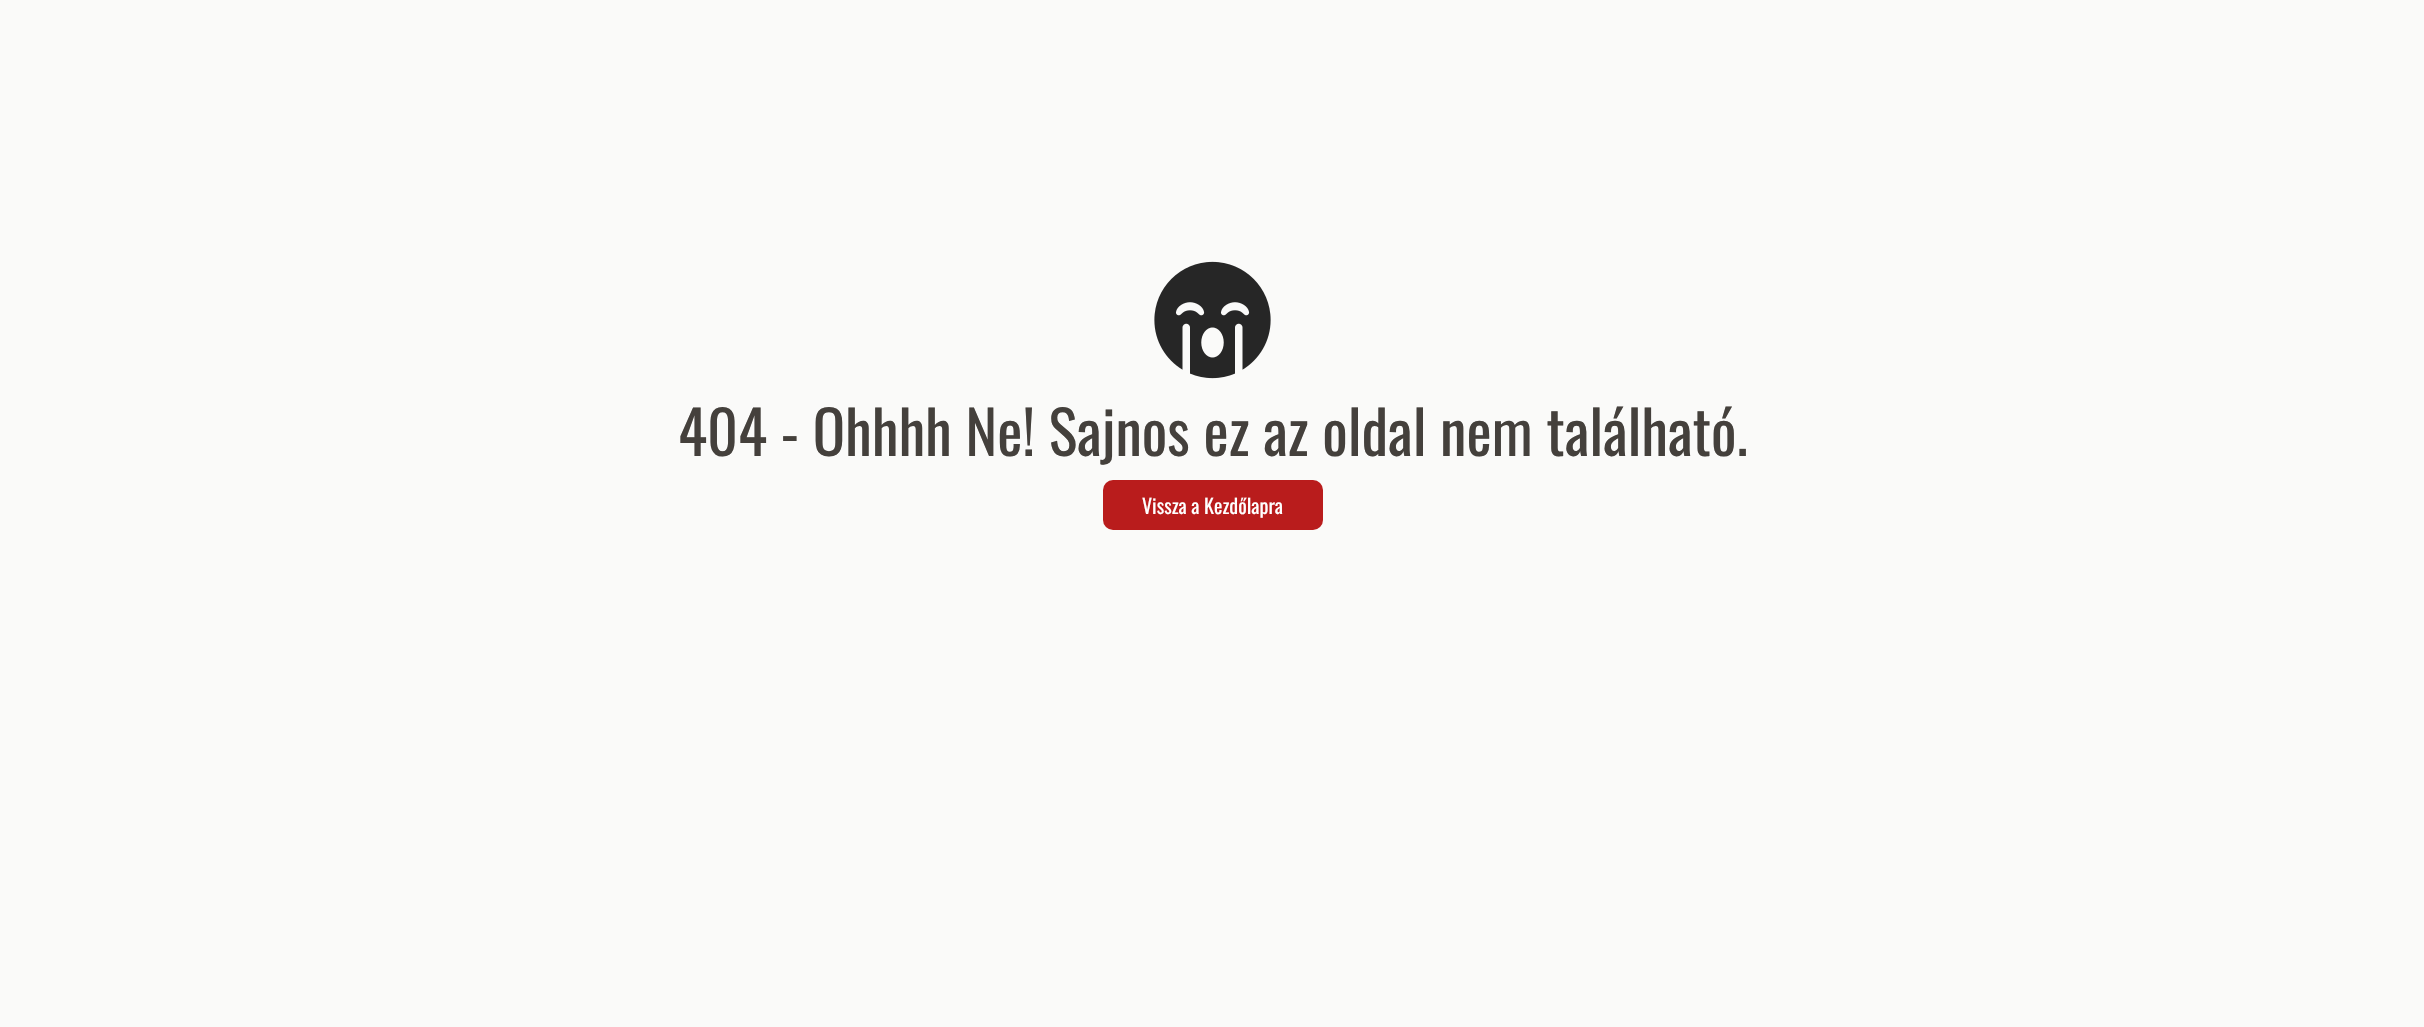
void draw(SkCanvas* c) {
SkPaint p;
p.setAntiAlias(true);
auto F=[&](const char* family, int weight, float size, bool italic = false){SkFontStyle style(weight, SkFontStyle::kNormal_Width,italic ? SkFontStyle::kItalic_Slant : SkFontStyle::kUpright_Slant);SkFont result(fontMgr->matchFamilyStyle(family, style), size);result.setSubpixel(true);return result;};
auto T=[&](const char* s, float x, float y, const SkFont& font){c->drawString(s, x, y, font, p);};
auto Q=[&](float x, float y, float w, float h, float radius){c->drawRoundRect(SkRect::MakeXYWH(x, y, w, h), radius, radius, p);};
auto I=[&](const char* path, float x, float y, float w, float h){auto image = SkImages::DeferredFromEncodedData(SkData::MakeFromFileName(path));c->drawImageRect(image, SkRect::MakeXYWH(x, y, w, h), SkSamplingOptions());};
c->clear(0xfffafaf9);
I("1.png",1154,261,117,118);
auto f1 = F("Oswald",400,60);
p.setColor(0xff44403c);
T("404 - Ohhhh Ne! Sajnos ez az oldal nem található.",678,456,f1);
p.setColor(0xffb91c1c);
Q(1103,480,220,50,10);
auto f2 = F("Oswald",400,20);
p.setColor(0xffffffff);
T("Vissza a Kezdőlapra",1142,514,f2);
}
